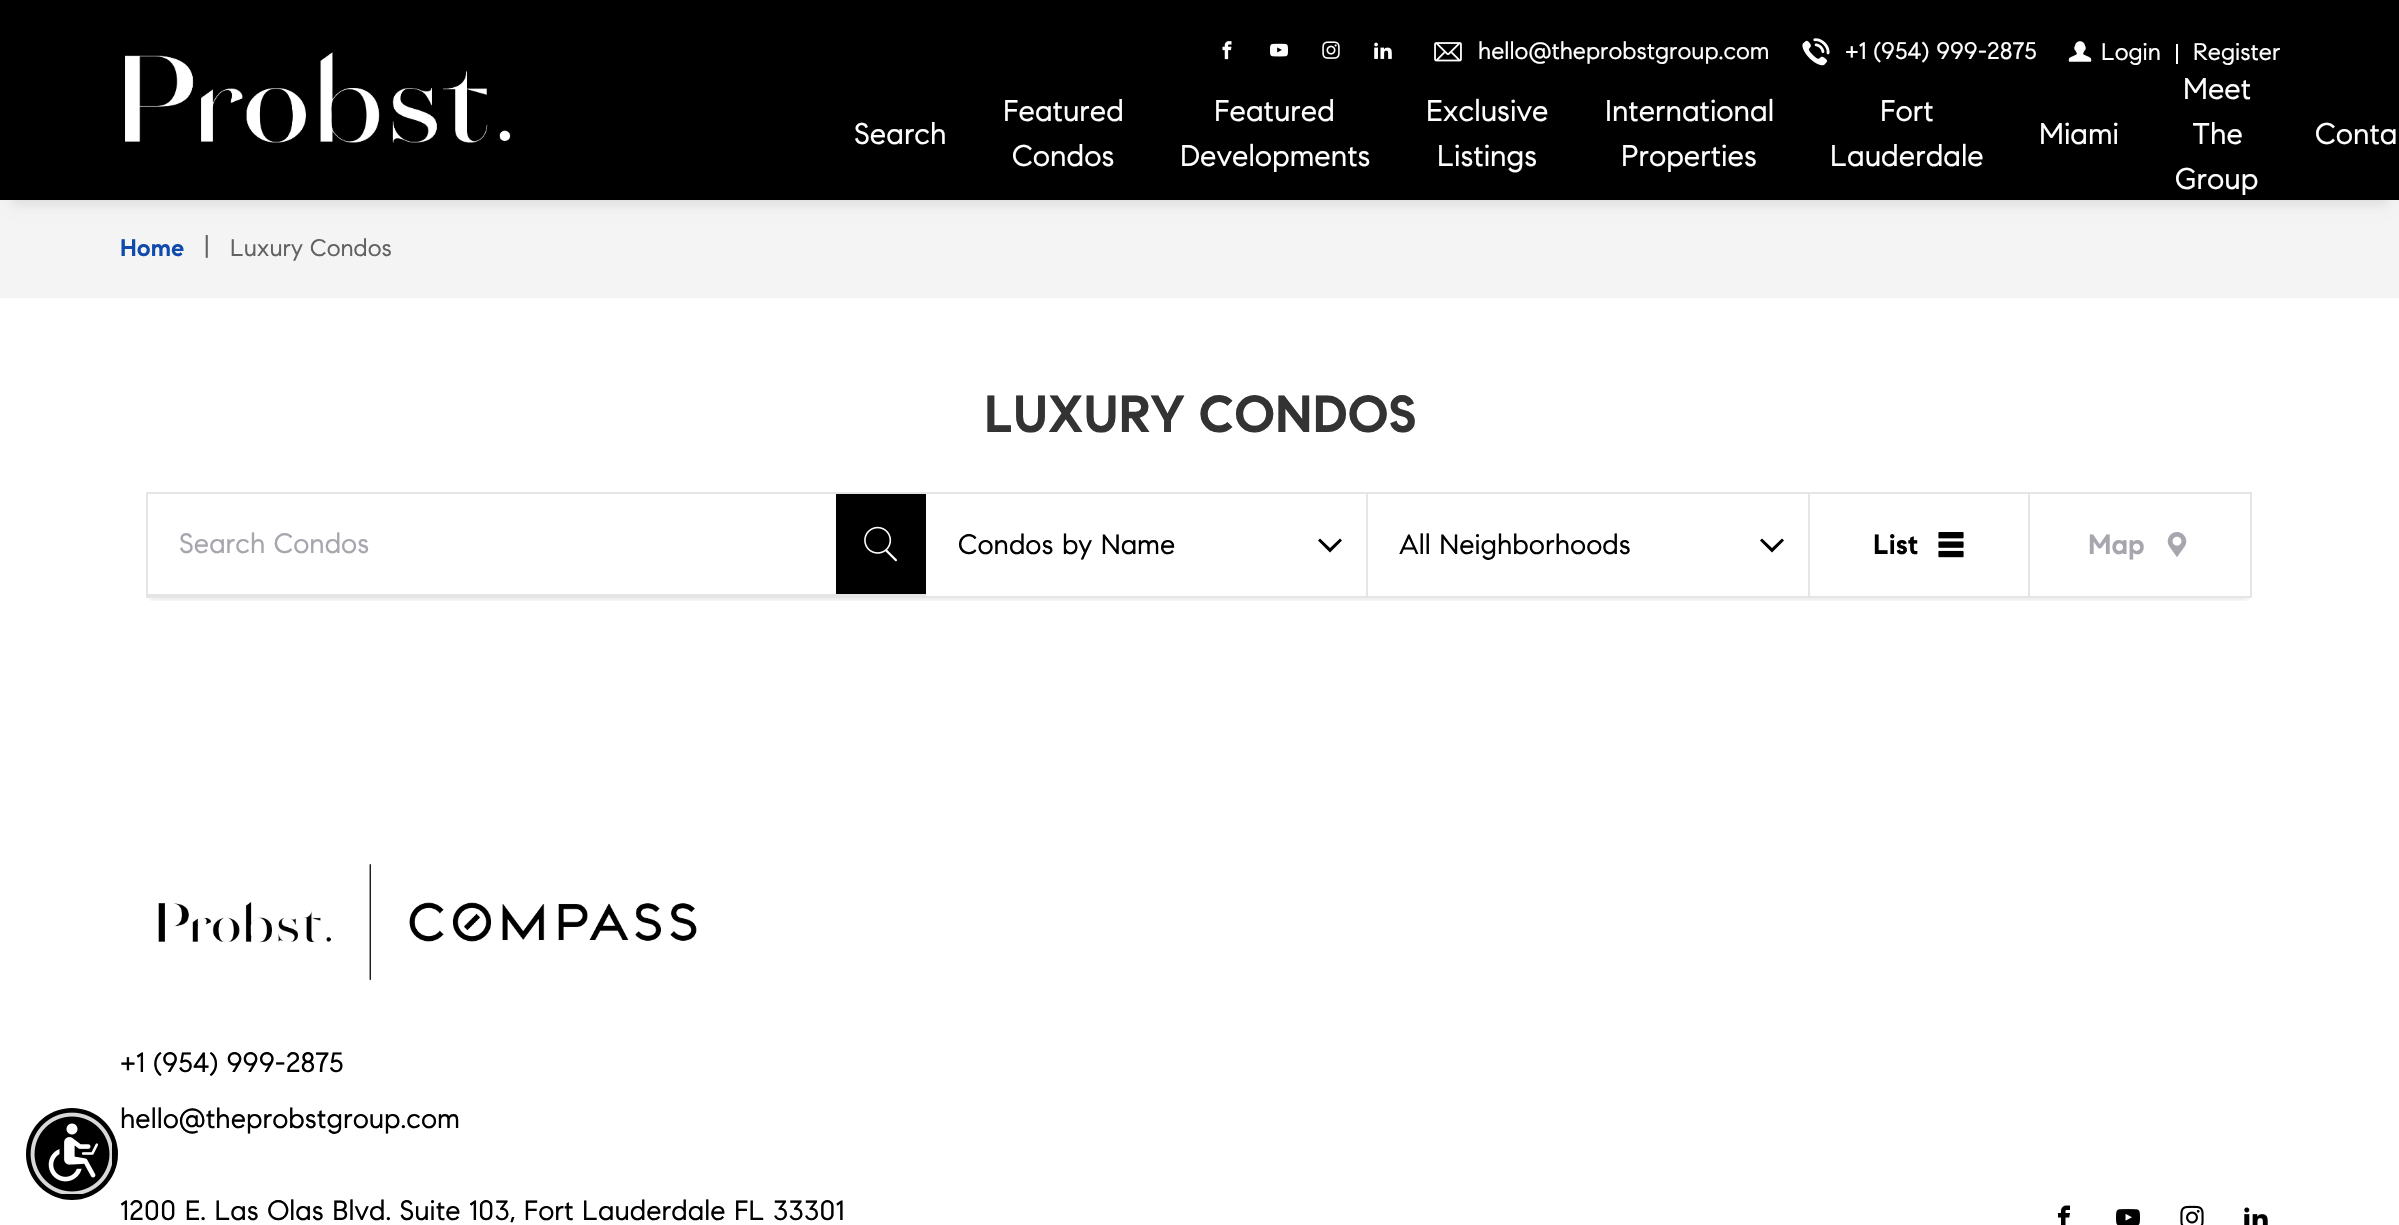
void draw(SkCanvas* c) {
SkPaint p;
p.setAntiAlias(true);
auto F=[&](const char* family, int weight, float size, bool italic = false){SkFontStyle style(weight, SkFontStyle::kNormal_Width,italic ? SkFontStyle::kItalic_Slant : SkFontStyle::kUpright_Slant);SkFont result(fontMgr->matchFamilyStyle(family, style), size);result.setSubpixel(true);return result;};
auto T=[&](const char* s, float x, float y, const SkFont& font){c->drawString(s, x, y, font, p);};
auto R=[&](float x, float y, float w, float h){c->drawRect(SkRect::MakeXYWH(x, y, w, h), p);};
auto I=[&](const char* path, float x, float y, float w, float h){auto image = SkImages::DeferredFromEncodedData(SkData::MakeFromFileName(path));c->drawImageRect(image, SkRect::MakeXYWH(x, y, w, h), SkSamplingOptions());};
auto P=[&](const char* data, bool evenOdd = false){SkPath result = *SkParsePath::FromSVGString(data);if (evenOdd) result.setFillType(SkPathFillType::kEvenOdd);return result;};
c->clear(0xffffffff);
p.setColor(0xfff4f4f4);
R(0,200,2399,98);
p.setColor(0x1a000000);
p.setMaskFilter(SkMaskFilter::MakeBlur(kNormal_SkBlurStyle, 6));
c->drawRect(SkRect::MakeXYWH(12,28,2376,176),p);
p.setMaskFilter(nullptr);
p.setColor(0xff000000);
R(0,0,2399,200);
I("1.png",1222,41,10,19);
I("2.png",1270,43,18,14);
I("3.png",1322,41,18,18);
I("4.png",1374,42,18,17);
I("5.png",1434,42,28,20);
auto f1 = F("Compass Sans",400,24);
p.setColor(0xffffffff);
T("hello@theprobstgroup.com",1478,59,f1);
I("6.png",1802,38,28,28);
T("+1 (954) 999-2875",1845,59,f1);
I("7.png",2068,41,24,21);
T("Login",2101,60,f1);
R(2176,44,2,20);
T("Register",2193,60,f1);
I("8.png",125,52,386,91);
auto f2 = F("Compass Sans",400,30);
T("Search",854,144,f2);
T("Featured",1003,121,f2);
T("Condos",1012,166,f2);
T("Featured",1214,121,f2);
T("Developments",1180,166,f2);
T("Exclusive",1426,121,f2);
T("Listings",1437,166,f2);
T("International",1605,121,f2);
T("Properties",1621,166,f2);
T("Fort",1880,121,f2);
T("Lauderdale",1830,166,f2);
T("Miami",2039,144,f2);
T("Meet",2183,99,f2);
T("The",2192,144,f2);
T("Group",2175,189,f2);
T("Conta",2315,144,f2);
auto f3 = F("Compass Sans",700,24);
p.setColor(0xff0f4aac);
T("Home",120,256,f3);
p.setColor(0xff626262);
T("|",204,253,f1);
T("Luxury Condos",230,256,f1);
auto f4 = F("Compass Sans",700,52);
p.setColor(0xff333333);
T("LUXURY CONDOS",984,432,f4);
c->save();
c->clipRect(SkRect::MakeXYWH(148,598,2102,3));
p.setColor(0x29000000);
p.setMaskFilter(SkMaskFilter::MakeBlur(kNormal_SkBlurStyle, 3));
c->drawRect(SkRect::MakeXYWH(150,500,2098,98),p);
p.setMaskFilter(nullptr);
c->restore();
p.setColor(0xffe5e5e5);
R(146,492,2106,2);
R(146,596,2106,2);
R(146,492,2,106);
R(148,594,778,2);
auto f5 = F("Compass Sans",400,28);
p.setColor(0xffa7a6ae);
T("Search Condos",179,553,f5);
p.setColor(0xff000000);
R(836,494,90,100);
I("9.png",864,526,33,36);
p.setColor(0xffe5e5e5);
R(1366,494,2,102);
p.setColor(0xff000000);
T("Condos by Name",958,554,f5);
c->drawPath(P("M1342 540.5l-2-2l-10 9.5l-10-9.5l-2 2l12 12z"),p);
p.setColor(0xffe5e5e5);
R(1808,494,2,102);
p.setColor(0xff000000);
T("All Neighborhoods",1399,554,f5);
c->drawPath(P("M1784 540.5l-2-2l-10 9.5l-10-9.5l-2 2l12 12z"),p);
p.setColor(0xffe5e5e5);
R(2250,494,2,102);
R(2028,494,2,102);
auto f6 = F("Compass Sans",700,28);
p.setColor(0xff000000);
T("List",1873,554,f6);
I("10.png",1938,532,26,26);
p.setColor(0xffa7a6ae);
T("Map",2088,554,f6);
I("11.png",2167,532,20,25);
p.setColor(0xff000000);
c->drawCircle(72,1154,46,p);
I("12.png",30,1112,82,82);
I("13.png",158,863,539,118);
T("+1 (954) 999-2875",120,1072,f5);
T("hello@theprobstgroup.com",120,1128,f5);
T("1200 E. Las Olas Blvd. Suite 103, Fort Lauderdale FL 33301",120,1220,f5);
I("14.png",2058,1205,12,20);
I("15.png",2116,1209,24,16);
I("16.png",2180,1205,24,20);
I("17.png",2244,1207,24,18);
}
